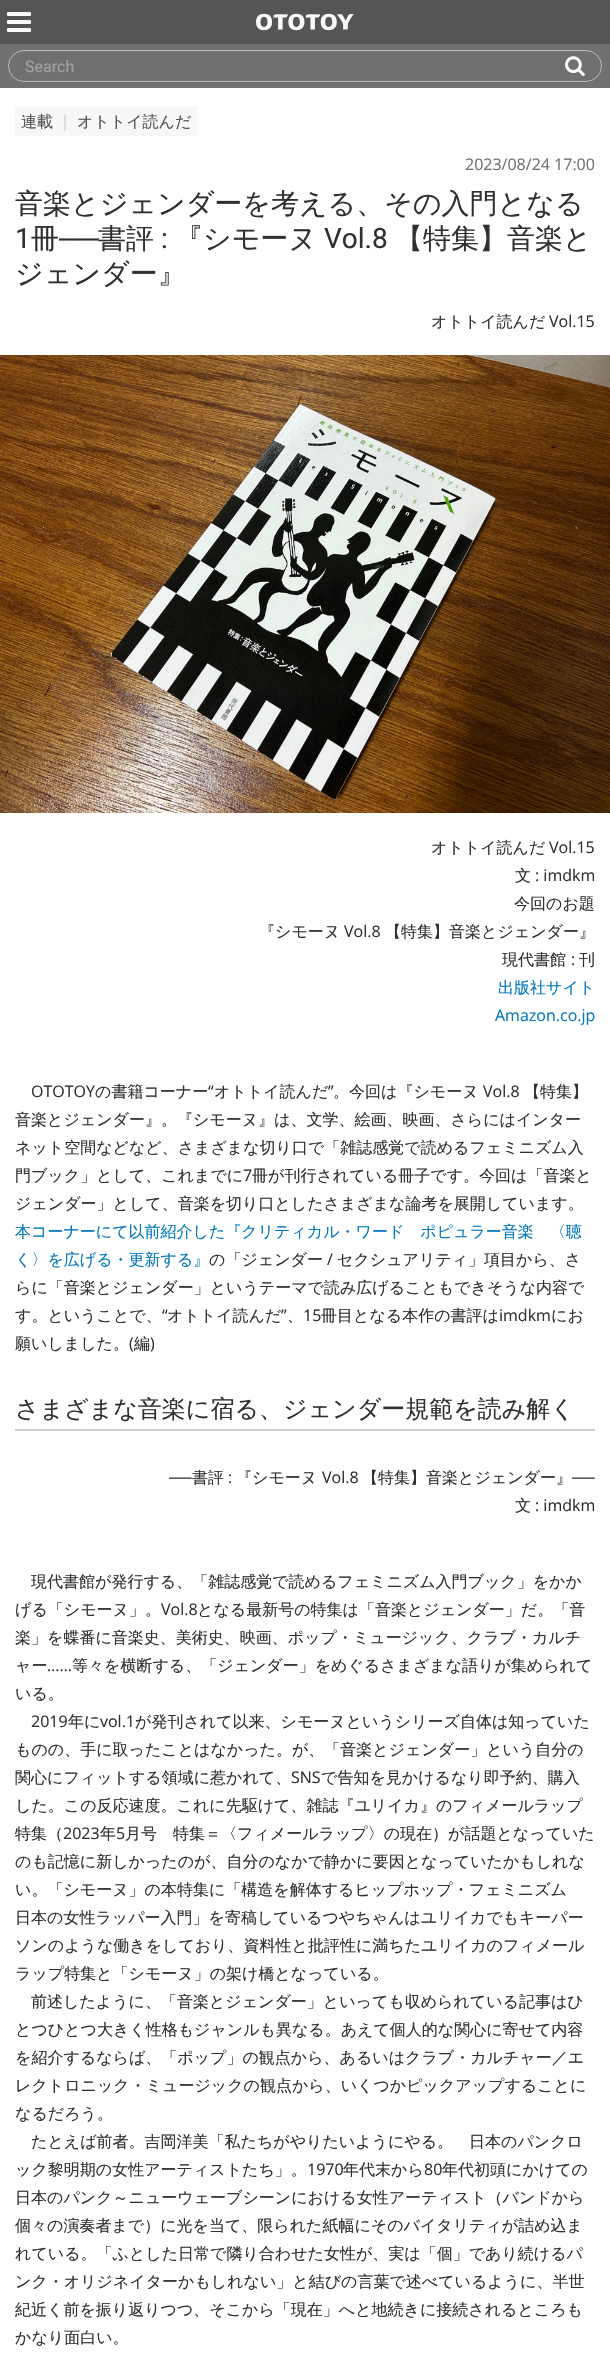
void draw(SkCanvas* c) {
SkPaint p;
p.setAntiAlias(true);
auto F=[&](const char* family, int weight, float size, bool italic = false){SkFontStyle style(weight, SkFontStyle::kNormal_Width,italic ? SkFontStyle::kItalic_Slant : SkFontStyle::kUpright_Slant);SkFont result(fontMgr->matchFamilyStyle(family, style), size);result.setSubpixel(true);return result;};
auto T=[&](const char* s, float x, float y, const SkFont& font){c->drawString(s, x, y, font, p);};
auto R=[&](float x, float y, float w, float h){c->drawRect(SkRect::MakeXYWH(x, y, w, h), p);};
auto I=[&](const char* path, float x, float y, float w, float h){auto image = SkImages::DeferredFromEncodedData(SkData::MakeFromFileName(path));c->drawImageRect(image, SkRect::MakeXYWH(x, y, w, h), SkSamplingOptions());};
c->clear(0xffffffff);
p.setColor(0xff555555);
R(0,0,610,44);
I("1.png",7,12,24,20);
I("2.png",256,13,98,18);
p.setColor(0xff707070);
R(0,44,610,44);
p.setStroke(true);
p.setStrokeWidth(1);
p.setColor(0xffb8b8b8);
c->drawRoundRect(SkRect::MakeXYWH(8.5,50.5,593,31),15.5,15.5,p);
auto f1 = F("Roboto",400,16);
p.setStroke(false);
p.setColor(0xffa2a2a2);
T("Search",25,72,f1);
I("3.png",565,56,20,20);
p.setColor(0xfff7f7f9);
R(15,106,182,30);
auto f2 = F("WenQuanYi Zen Hei",500,16);
p.setColor(0xff505050);
T("連載",21,127,f2);
p.setColor(0xffcccccc);
T("｜",57,127,f2);
p.setColor(0xff505050);
T("オトトイ読んだ",77,127,f2);
auto f3 = F("Open Sans",400,16);
p.setColor(0xff707070);
T("2023/08/24 17:00",465,170,f3);
auto f4 = F("WenQuanYi Zen Hei",500,28);
p.setColor(0xff303030);
T("音楽とジェンダーを考える、その入門となる",15,213,f4);
auto f5 = F("Roboto",400,28);
T("1",15,248,f5);
T("冊",31,248,f4);
auto f6 = F("Liberation Sans",400,28);
T("──",59,248,f6);
T("書評",98,248,f4);
T(":",161,248,f5);
T("『シモーヌ",175,248,f4);
T("Vol.8",324,248,f5);
T("【特集】音楽と",395,248,f4);
T("ジェンダー』",15,283,f4);
T("オトトイ読んだ",431,327,f2);
T("Vol.15",549,327,f3);
I("4.png",0,355,610,458);
T("オトトイ読んだ",431,853,f2);
T("Vol.15",549,853,f3);
T("文",515,881,f2);
T(": imdkm",535,881,f3);
T("今回のお題",514,909,f2);
T("『シモーヌ",259,937,f2);
T("Vol.8",344,937,f3);
T("【特集】音楽とジェンダー』",385,937,f2);
T("現代書館",502,965,f2);
T(":",571,965,f3);
T("刊",579,965,f2);
p.setColor(0xff0277bd);
T("出版社サイト",498,993,f2);
T("Amazon.co.jp",495,1021,f3);
p.setColor(0xff303030);
T("OTOTOY",31,1097,f3);
T("の書籍コーナー",95,1097,f2);
T("“",208,1097,f3);
T("オトトイ読んだ",214,1097,f2);
T("”",328,1097,f3);
T("。今回は『シモーヌ",333,1097,f2);
T("Vol.8",483,1097,f3);
T("【特集】",524,1097,f2);
T("音楽とジェンダー』。『シモーヌ』は、文学、絵画、映画、さらにはインター",15,1125,f2);
T("ネット空間などなど、さまざまな切り口で「雑誌感覚で読めるフェミニズム入",15,1153,f2);
T("門ブック」として、これまでに",15,1181,f2);
T("7",243,1181,f3);
T("冊が刊行されている冊子です。今回は「音楽と",252,1181,f2);
T("ジェンダー」として、音楽を切り口としたさまざまな論考を展開しています。",15,1209,f2);
p.setColor(0xff0277bd);
T("本コーナーにて以前紹介した『クリティカル・ワード　ポピュラー音楽　〈聴",15,1237,f2);
T("く〉を広げる・更新する』",15,1265,f2);
p.setColor(0xff303030);
T("の「ジェンダー",209,1265,f2);
T("/",327,1265,f3);
T("セクシュアリティ」項目から、さ",337,1265,f2);
T("らに「音楽とジェンダー」というテーマで読み広げることもできそうな内容で",15,1293,f2);
T("す。ということで、",15,1321,f2);
T("“",162,1321,f3);
T("オトトイ読んだ",167,1321,f2);
T("”",281,1321,f3);
T("、",287,1321,f2);
T("15",303,1321,f3);
T("冊目となる本作の書評は",321,1321,f2);
T("imdkm",499,1321,f3);
T("にお",551,1321,f2);
T("願いしました。",15,1349,f2);
T("(",129,1349,f3);
T("編",134,1349,f2);
T(")",150,1349,f3);
p.setColor(0xffcccccc);
R(15,1429,580,2);
auto f7 = F("WenQuanYi Zen Hei",500,24);
p.setColor(0xff303030);
T("さまざまな音楽に宿る、ジェンダー規範を読み解く",15,1417,f7);
auto f8 = F("Liberation Sans",400,16);
T("──",169,1483,f8);
T("書評",192,1483,f2);
T(":",228,1483,f3);
T("『シモーヌ",236,1483,f2);
T("Vol.8",322,1483,f3);
T("【特集】音楽とジェンダー』",362,1483,f2);
T("──",572,1483,f8);
T("文",515,1511,f2);
T(": imdkm",535,1511,f3);
T("現代書館が発行する、「雑誌感覚で読めるフェミニズム入門ブック」をかか",31,1587,f2);
T("げる「シモーヌ」。",15,1615,f2);
T("Vol.8",161,1615,f3);
T("となる最新号の特集は「音楽とジェンダー」だ。「音",197,1615,f2);
T("楽」を蝶番に音楽史、美術史、映画、ポップ・ミュージック、クラブ・カルチ",15,1643,f2);
T("ャー",15,1671,f2);
T("……",47,1671,f3);
T("等々を横断する、「ジェンダー」をめぐるさまざまな語りが集められて",72,1671,f2);
T("いる。",15,1699,f2);
T("2019",31,1727,f3);
T("年に",68,1727,f2);
T("vol.1",100,1727,f3);
T("が発刊されて以来、シモーヌというシリーズ自体は知っていた",135,1727,f2);
T("ものの、手に取ったことはなかった。が、「音楽とジェンダー」という自分の",15,1755,f2);
T("関心にフィットする領域に惹かれて、",15,1783,f2);
T("SNS",291,1783,f3);
T("で告知を見かけるなり即予約、購入",321,1783,f2);
T("した。この反応速度。これに先駆けて、雑誌『ユリイカ』のフィメールラップ",15,1811,f2);
T("特集（",15,1839,f2);
T("2023",63,1839,f3);
T("年",100,1839,f2);
T("5",116,1839,f3);
T("月号　特集＝〈フィメールラップ〉の現在）が話題となっていた",125,1839,f2);
T("のも記憶に新しかったのが、自分のなかで静かに要因となっていたかもしれな",15,1867,f2);
T("い。「シモーヌ」の本特集に「構造を解体するヒップホップ・フェミニズム",15,1895,f2);
T("日本の女性ラッパー入門」を寄稿しているつやちゃんはユリイカでもキーパー",15,1923,f2);
T("ソンのような働きをしており、資料性と批評性に満ちたユリイカのフィメール",15,1951,f2);
T("ラップ特集と「シモーヌ」の架け橋となっている。",15,1979,f2);
T("前述したように、「音楽とジェンダー」といっても収められている記事はひ",31,2007,f2);
T("とつひとつ大きく性格もジャンルも異なる。あえて個人的な関心に寄せて内容",15,2035,f2);
T("を紹介するならば、「ポップ」の観点から、あるいはクラブ・カルチャー／エ",15,2063,f2);
T("レクトロニック・ミュージックの観点から、いくつかピックアップすることに",15,2091,f2);
T("なるだろう。",15,2119,f2);
T("たとえば前者。吉岡洋美「私たちがやりたいようにやる。　日本のパンクロ",31,2147,f2);
T("ック黎明期の女性アーティストたち」。",15,2175,f2);
T("1970",307,2175,f3);
T("年代末から",343,2175,f2);
T("80",424,2175,f3);
T("年代初頭にかけての",442,2175,f2);
T("日本のパンク～ニューウェーブシーンにおける女性アーティスト（バンドから",15,2203,f2);
T("個々の演奏者まで）に光を当て、限られた紙幅にそのバイタリティが詰め込ま",15,2231,f2);
T("れている。「ふとした日常で隣り合わせた女性が、実は「個」であり続けるパ",15,2259,f2);
T("ンク・オリジネイターかもしれない」と結びの言葉で述べているように、半世",15,2287,f2);
T("紀近く前を振り返りつつ、そこから「現在」へと地続きに接続されるところも",15,2315,f2);
T("かなり面白い。",15,2343,f2);
}
